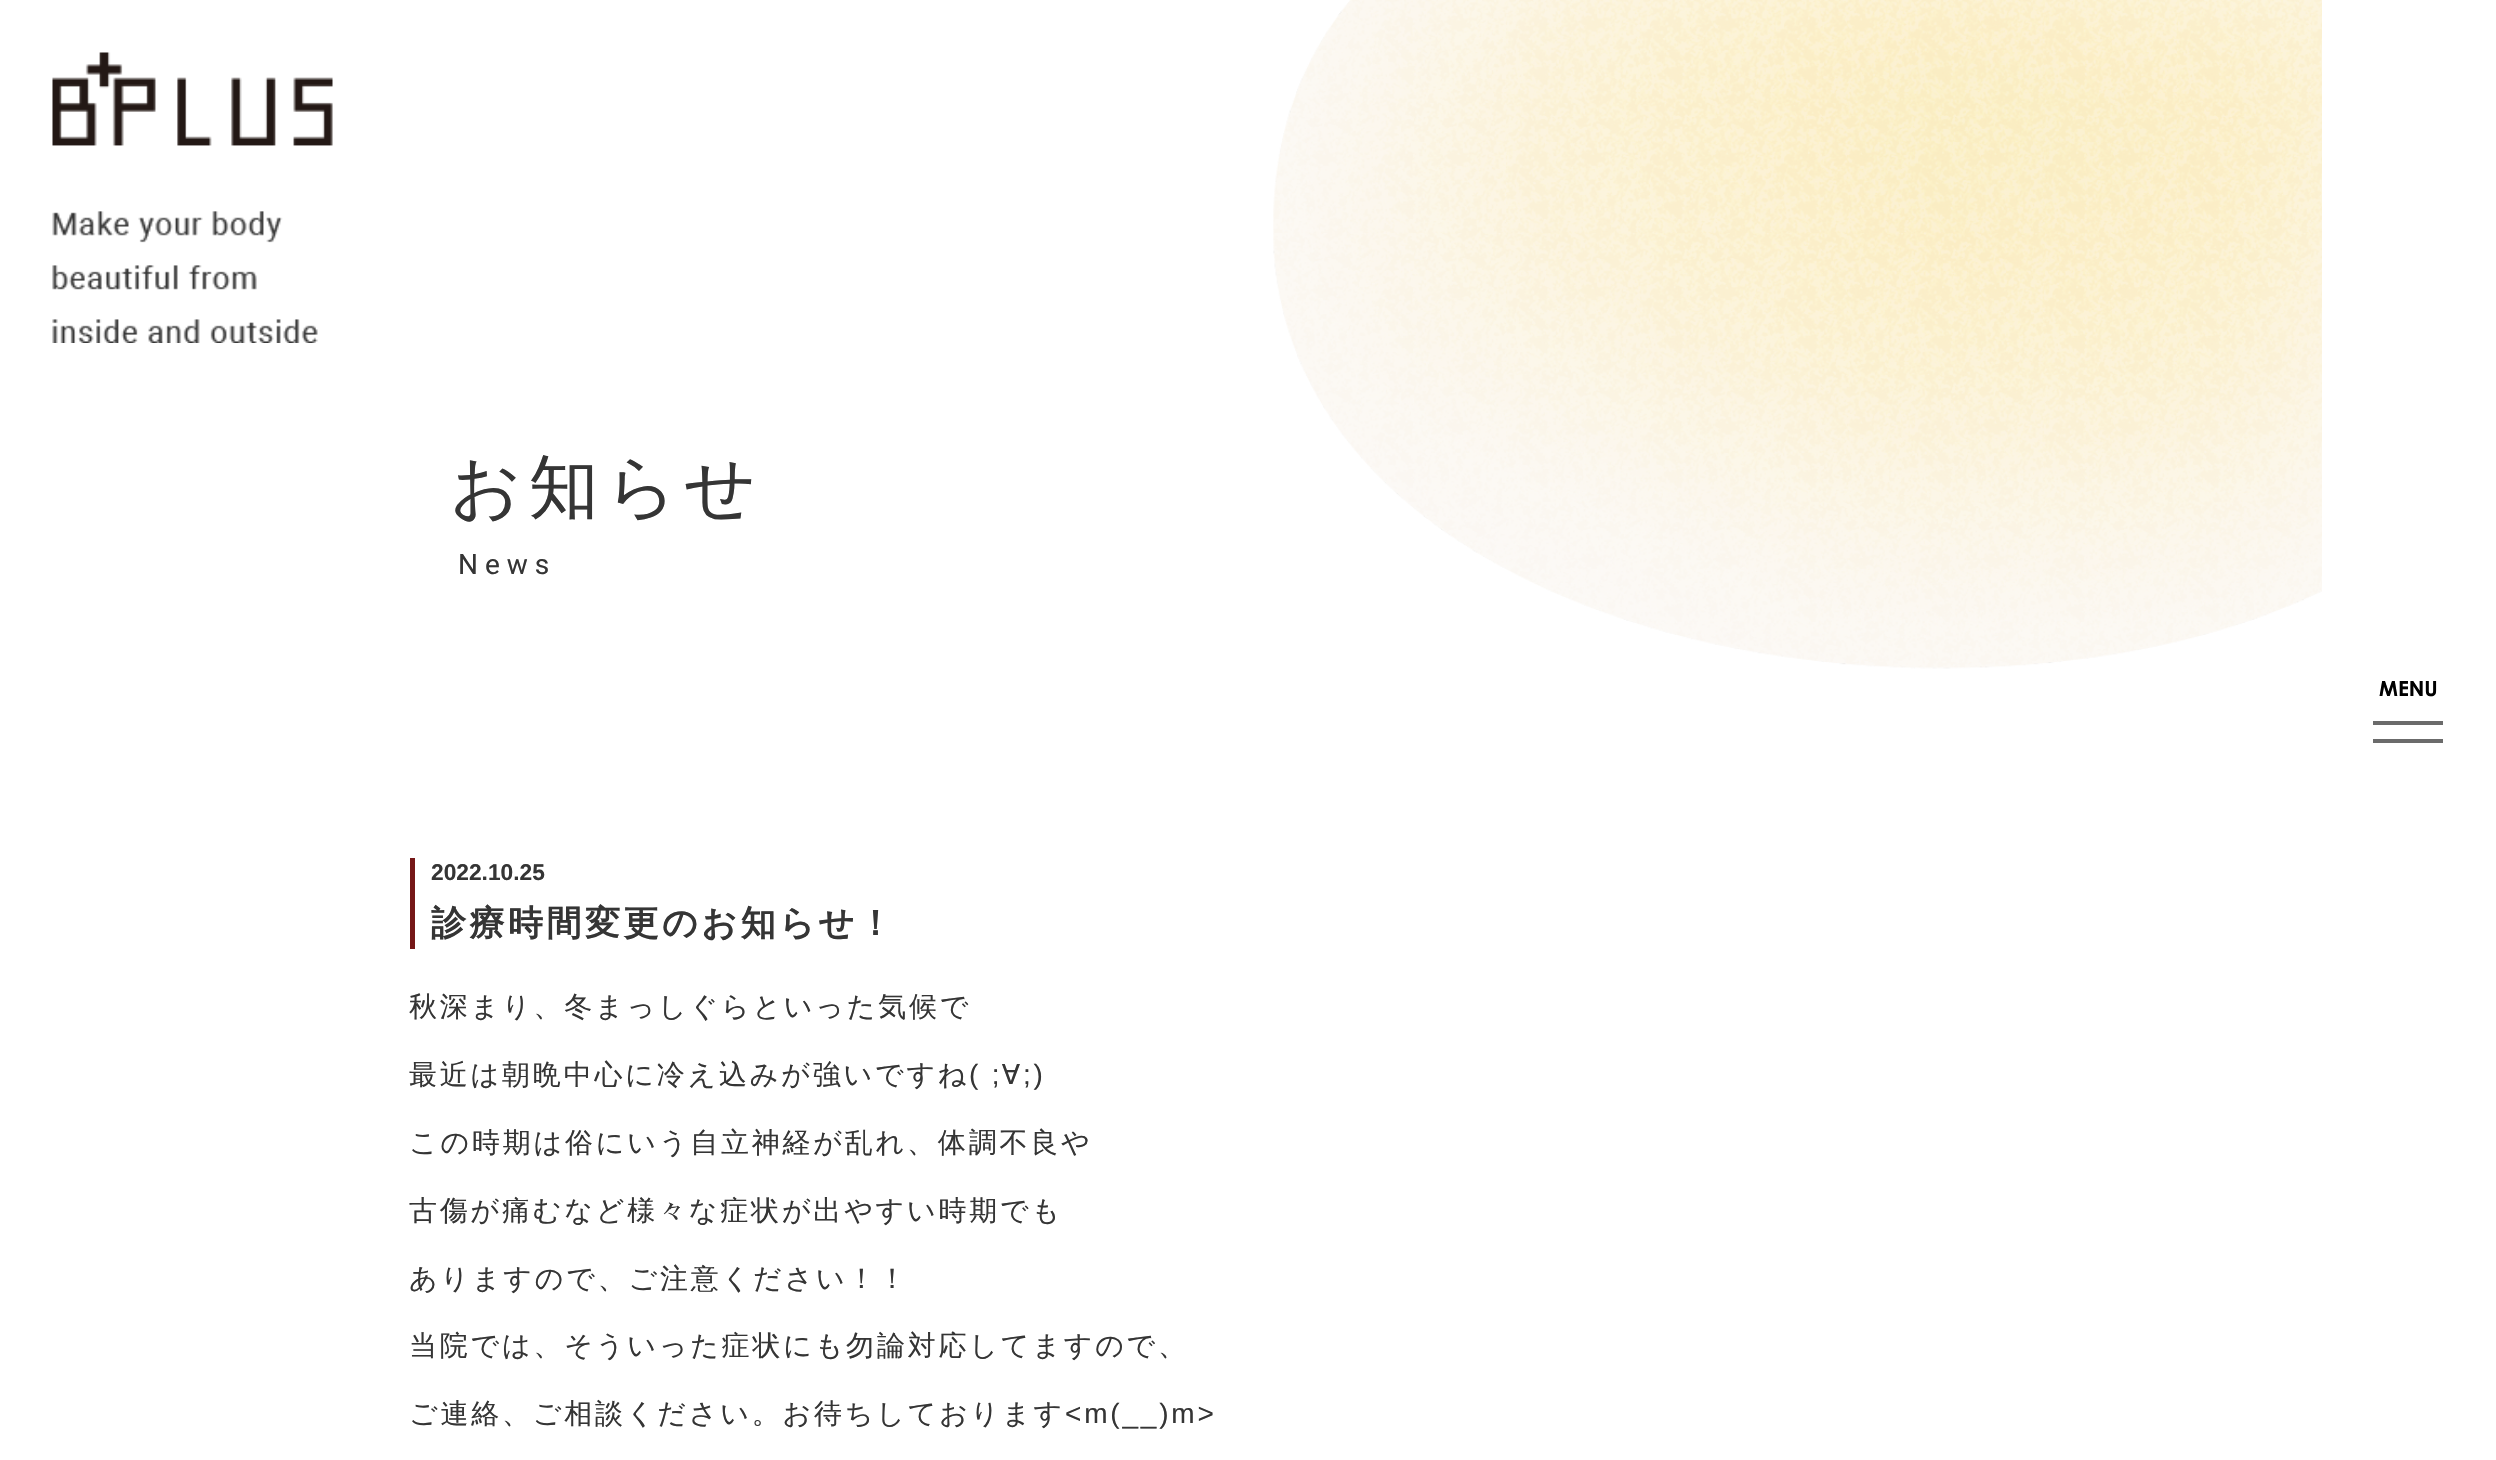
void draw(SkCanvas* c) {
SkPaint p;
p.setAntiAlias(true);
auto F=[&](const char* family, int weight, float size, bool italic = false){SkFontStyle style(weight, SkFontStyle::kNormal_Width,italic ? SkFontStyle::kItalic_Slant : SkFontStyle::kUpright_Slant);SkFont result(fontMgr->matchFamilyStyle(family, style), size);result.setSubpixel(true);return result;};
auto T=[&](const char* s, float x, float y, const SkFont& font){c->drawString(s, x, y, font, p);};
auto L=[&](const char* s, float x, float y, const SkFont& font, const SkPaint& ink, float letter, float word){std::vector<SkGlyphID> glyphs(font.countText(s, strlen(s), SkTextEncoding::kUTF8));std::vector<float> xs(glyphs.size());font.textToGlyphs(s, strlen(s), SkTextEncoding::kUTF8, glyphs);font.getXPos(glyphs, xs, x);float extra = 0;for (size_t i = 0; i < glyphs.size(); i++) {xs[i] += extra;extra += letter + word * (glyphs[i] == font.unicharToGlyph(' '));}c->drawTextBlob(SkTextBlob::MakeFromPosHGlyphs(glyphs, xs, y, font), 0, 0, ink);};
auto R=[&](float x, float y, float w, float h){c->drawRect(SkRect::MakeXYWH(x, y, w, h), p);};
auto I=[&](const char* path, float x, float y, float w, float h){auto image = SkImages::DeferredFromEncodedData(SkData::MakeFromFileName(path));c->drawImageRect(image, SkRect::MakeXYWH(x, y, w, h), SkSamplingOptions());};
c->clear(0xffffffff);
I("1.png",52,52,281,291);
I("2.png",1273,0,1049,669);
auto f1 = F("WenQuanYi Zen Hei",500,70);
p.setColor(0xff353535);
L("お知らせ",450,511,f1,p,7,0);
auto f2 = F("Roboto",400,28);
L("News",458,574,f2,p,7,0);
auto f3 = F("Century Gothic",700,21);
p.setColor(0xff000000);
T("MENU",2379,696,f3);
p.setColor(0xff6b6b6b);
R(2373,721,70,4);
R(2373,739,70,4);
p.setColor(0xff751717);
R(410,858,5,91);
auto f4 = F("Liberation Sans",700,22.75);
p.setColor(0xff353535);
T("2022.10.25",431,880,f4);
auto f5 = F("WenQuanYi Zen Hei",700,35);
L("診療時間変更のお知らせ！",431,935,f5,p,3.5,0);
auto f6 = F("WenQuanYi Zen Hei",500,28);
L("秋深まり、冬まっしぐらといった気候で",409,1016,f6,p,2.8,0);
L("最近は朝晩中心に冷え込みが強いですね",409,1084,f6,p,2.8,0);
auto f7 = F("Liberation Sans",400,28);
L("( ;",969,1084,f7,p,2.8,0);
L("∀",1002,1084,f6,p,2.8,0);
L(";)",1023,1084,f7,p,2.8,0);
L("この時期は俗にいう自立神経が乱れ、体調不良や",409,1152,f6,p,2.8,0);
L("古傷が痛むなど様々な症状が出やすい時期でも",409,1220,f6,p,2.8,0);
L("ありますので、ご注意ください！！",409,1288,f6,p,2.8,0);
L("当院では、そういった症状にも勿論対応してますので、",409,1355,f6,p,2.8,0);
L("ご連絡、ご相談ください。お待ちしております",409,1423,f6,p,2.8,0);
L("<m(__)m>",1065,1423,f7,p,2.8,0);
}
